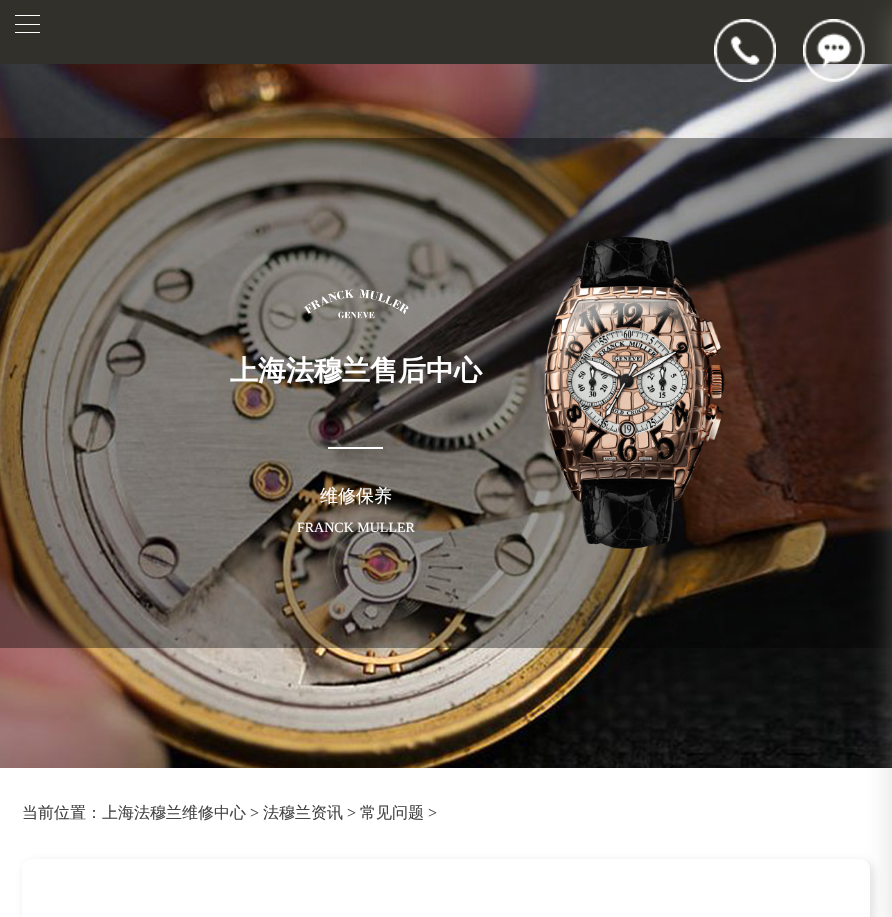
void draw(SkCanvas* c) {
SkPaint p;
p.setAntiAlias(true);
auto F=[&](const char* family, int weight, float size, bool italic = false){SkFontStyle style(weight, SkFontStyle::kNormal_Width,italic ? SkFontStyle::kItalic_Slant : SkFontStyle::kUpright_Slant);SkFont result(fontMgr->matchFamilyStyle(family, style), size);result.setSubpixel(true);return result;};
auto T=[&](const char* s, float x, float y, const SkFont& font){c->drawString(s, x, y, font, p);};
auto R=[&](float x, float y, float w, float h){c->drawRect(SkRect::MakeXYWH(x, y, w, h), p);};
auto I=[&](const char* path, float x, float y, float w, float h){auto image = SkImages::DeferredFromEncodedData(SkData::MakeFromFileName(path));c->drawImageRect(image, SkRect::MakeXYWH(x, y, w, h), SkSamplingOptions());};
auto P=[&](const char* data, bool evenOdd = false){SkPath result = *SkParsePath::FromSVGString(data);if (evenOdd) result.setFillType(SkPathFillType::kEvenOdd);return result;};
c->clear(0xffffffff);
p.setColor(0xff31302a);
R(0,0,892,64);
p.setColor(0xffffffff);
R(15,24,25,1);
R(15,15,25,1);
R(15,32,25,1);
I("3.png",0,64,892,704);
I("1.png",714,19,62,63);
I("2.png",803,19,62,63);
p.setColor(0x61000000);
R(0,138,892,510);
p.setColor(0x61a7a5a5);
p.setMaskFilter(SkMaskFilter::MakeBlur(kNormal_SkBlurStyle, 13.5));
c->drawRect(SkRect::MakeXYWH(892,15,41,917),p);
p.setMaskFilter(nullptr);
I("4.png",303,289,106,30);
auto f1 = F("WenQuanYi Zen Hei",700,28);
p.setColor(0xffffffff);
T("上海法穆兰售后中心",230,380,f1);
R(328,447,55,2);
auto f2 = F("WenQuanYi Zen Hei",500,18);
T("维修保养",320,502,f2);
auto f3 = F("Liberation Serif",400,14);
T("FRANCK MULLER",297,532,f3);
I("5.png",544,237,181,312);
auto f4 = F("WenQuanYi Zen Hei",500,16);
p.setColor(0xff444444);
T("当前位置：上海法穆兰维修中心",22,818,f4);
auto f5 = F("Liberation Serif",400,16);
T(">",250,818,f5);
T("法穆兰资讯",263,818,f4);
T(">",347,818,f5);
T("常见问题",360,818,f4);
T(">",428,818,f5);
c->save();
c->clipPath(P("M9 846h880v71h-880zm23 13h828c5.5 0 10 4.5 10 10v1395c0 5.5-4.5 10-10 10h-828c-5.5 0-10-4.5-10-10v-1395c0-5.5 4.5-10 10-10z",true),true);
p.setColor(0x33666666);
p.setMaskFilter(SkMaskFilter::MakeBlur(kNormal_SkBlurStyle, 5));
c->drawRoundRect(SkRect::MakeXYWH(25,862,848,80),10,10,p);
p.setMaskFilter(nullptr);
c->restore();
}
